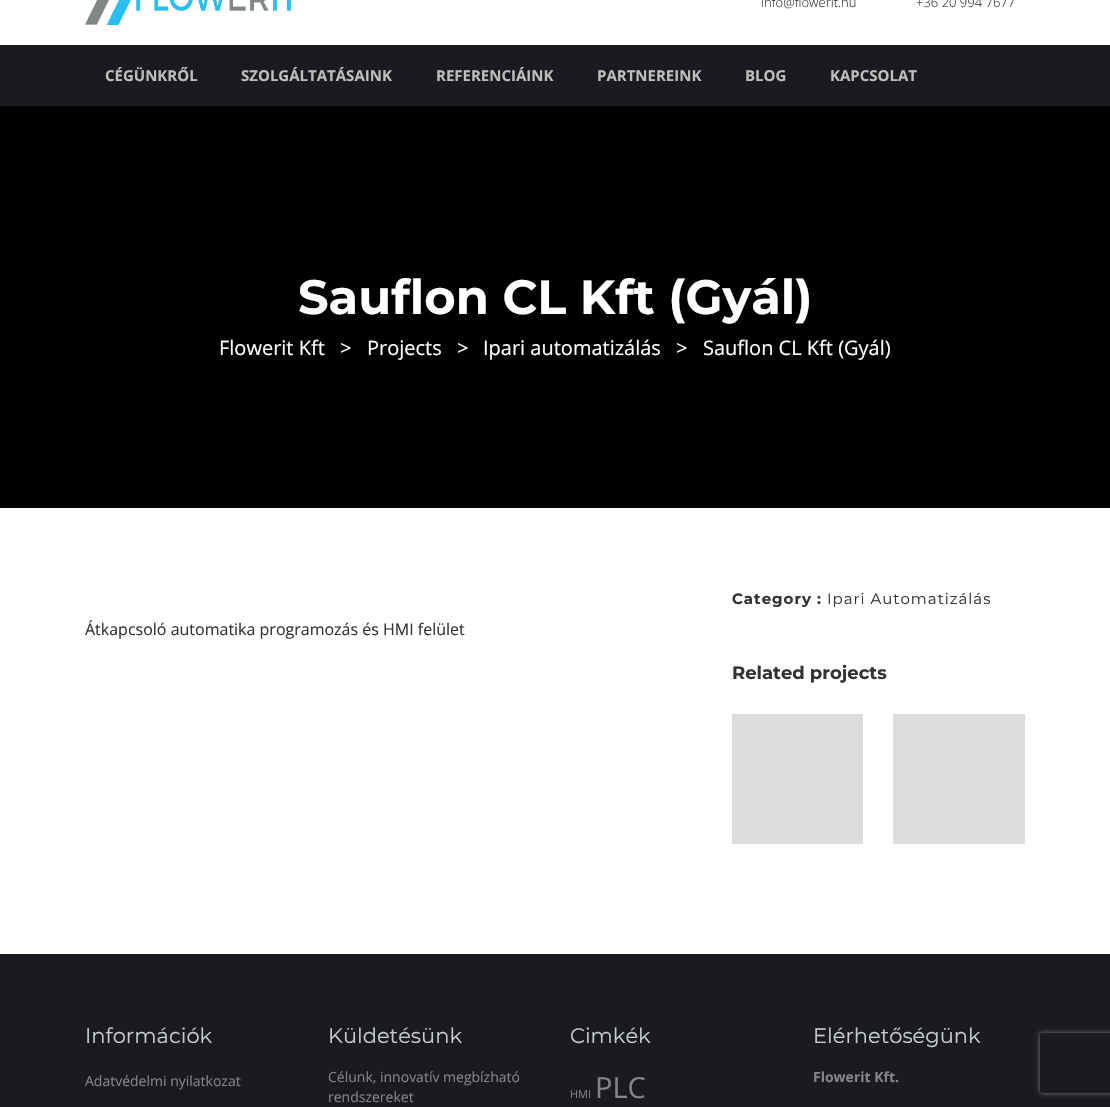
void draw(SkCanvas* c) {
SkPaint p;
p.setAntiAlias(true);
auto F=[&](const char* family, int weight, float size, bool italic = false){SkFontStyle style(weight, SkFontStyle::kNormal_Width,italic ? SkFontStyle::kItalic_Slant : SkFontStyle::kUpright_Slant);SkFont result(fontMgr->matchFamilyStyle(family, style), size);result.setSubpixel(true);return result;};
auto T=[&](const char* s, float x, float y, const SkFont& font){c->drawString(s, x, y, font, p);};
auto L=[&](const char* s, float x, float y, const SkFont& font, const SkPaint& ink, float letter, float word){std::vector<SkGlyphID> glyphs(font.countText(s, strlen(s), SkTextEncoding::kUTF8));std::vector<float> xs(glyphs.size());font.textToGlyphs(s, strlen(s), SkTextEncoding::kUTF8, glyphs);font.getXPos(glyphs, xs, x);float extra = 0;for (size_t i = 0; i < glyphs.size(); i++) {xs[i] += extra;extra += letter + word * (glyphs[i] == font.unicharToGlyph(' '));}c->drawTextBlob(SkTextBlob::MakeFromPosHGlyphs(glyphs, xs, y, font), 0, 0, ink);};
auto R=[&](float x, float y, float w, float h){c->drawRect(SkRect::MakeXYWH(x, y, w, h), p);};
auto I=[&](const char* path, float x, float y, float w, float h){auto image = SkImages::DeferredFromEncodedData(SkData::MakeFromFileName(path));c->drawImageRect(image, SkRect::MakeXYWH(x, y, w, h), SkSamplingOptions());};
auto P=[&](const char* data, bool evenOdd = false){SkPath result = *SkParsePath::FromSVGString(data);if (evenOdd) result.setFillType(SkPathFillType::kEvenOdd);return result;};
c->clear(0xffffffff);
I("1.png",85,0,206,25);
auto f1 = F("Open Sans",300,13);
p.setColor(0xff333333);
T("info@flowerit.hu",761,7,f1);
T("+36 20 994 7677",916,7,f1);
p.setColor(0xff1b1a1e);
R(0,45,1110,61);
auto f2 = F("Open Sans",700,15);
p.setColor(0xffbebebe);
T("CÉGÜNKRŐL",105,81,f2);
T("SZOLGÁLTATÁSAINK",241,81,f2);
T("REFERENCIÁINK",436,81,f2);
T("PARTNEREINK",597,81,f2);
T("BLOG",745,81,f2);
T("KAPCSOLAT",830,81,f2);
p.setColor(0xff000000);
R(0,106,1110,402);
auto f3 = F("Montserrat",700,48);
p.setColor(0xffffffff);
T("Sauflon CL Kft (Gyál)",298,314,f3);
auto f4 = F("Open Sans",400,20);
T("Flowerit Kft",219,355,f4);
T(">",340,355,f4);
T("Projects",367,355,f4);
T(">",457,355,f4);
T("Ipari automatizálás",483,355,f4);
T(">",676,355,f4);
T("Sauflon CL Kft (Gyál)",703,355,f4);
auto f5 = F("Open Sans",400,16);
p.setColor(0xff333333);
T("Átkapcsoló automatika programozás és HMI felület",85,635,f5);
auto f6 = F("Montserrat",700,15);
L("Category :",732,604,f6,p,1,0);
auto f7 = F("Montserrat",400,15);
L("Ipari Automatizálás",827,604,f7,p,1,0);
auto f8 = F("Montserrat",700,18);
T("Related projects",732,679,f8);
p.setColor(0xffdddddd);
R(732,714,131,130);
R(893,714,132,130);
p.setColor(0xff1b1a1e);
R(0,954,1110,153);
auto f9 = F("Montserrat",400,21);
p.setColor(0xffc5cccf);
T("Információk",85,1043,f9);
auto f10 = F("Open Sans",400,14);
p.setColor(0xff84848a);
T("Adatvédelmi nyilatkozat",85,1086,f10);
p.setColor(0xffc5cccf);
T("Küldetésünk",328,1043,f9);
p.setColor(0xff84848a);
T("Célunk, innovatív megbízható",328,1082,f10);
T("rendszereket",328,1102,f10);
p.setColor(0xffc5cccf);
T("Cimkék",570,1043,f9);
auto f11 = F("Open Sans",400,11);
p.setColor(0xff84848a);
T("HMI",570,1098,f11);
auto f12 = F("Open Sans",400,29);
T("PLC",595,1098,f12);
p.setColor(0xffc5cccf);
T("Elérhetőségünk",813,1043,f9);
auto f13 = F("Open Sans",700,14);
p.setColor(0xff84848a);
T("Flowerit Kft.",813,1082,f13);
c->save();
c->clipPath(P("M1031 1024h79v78h-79zm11 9h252c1 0 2 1 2 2v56c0 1-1 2-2 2h-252c-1 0-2-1-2-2v-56c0-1 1-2 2-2z",true),true);
p.setColor(0xff808080);
p.setMaskFilter(SkMaskFilter::MakeBlur(kNormal_SkBlurStyle, 2.5));
c->drawRoundRect(SkRect::MakeXYWH(1040,1033,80,60),2,2,p);
p.setMaskFilter(nullptr);
c->restore();
}
